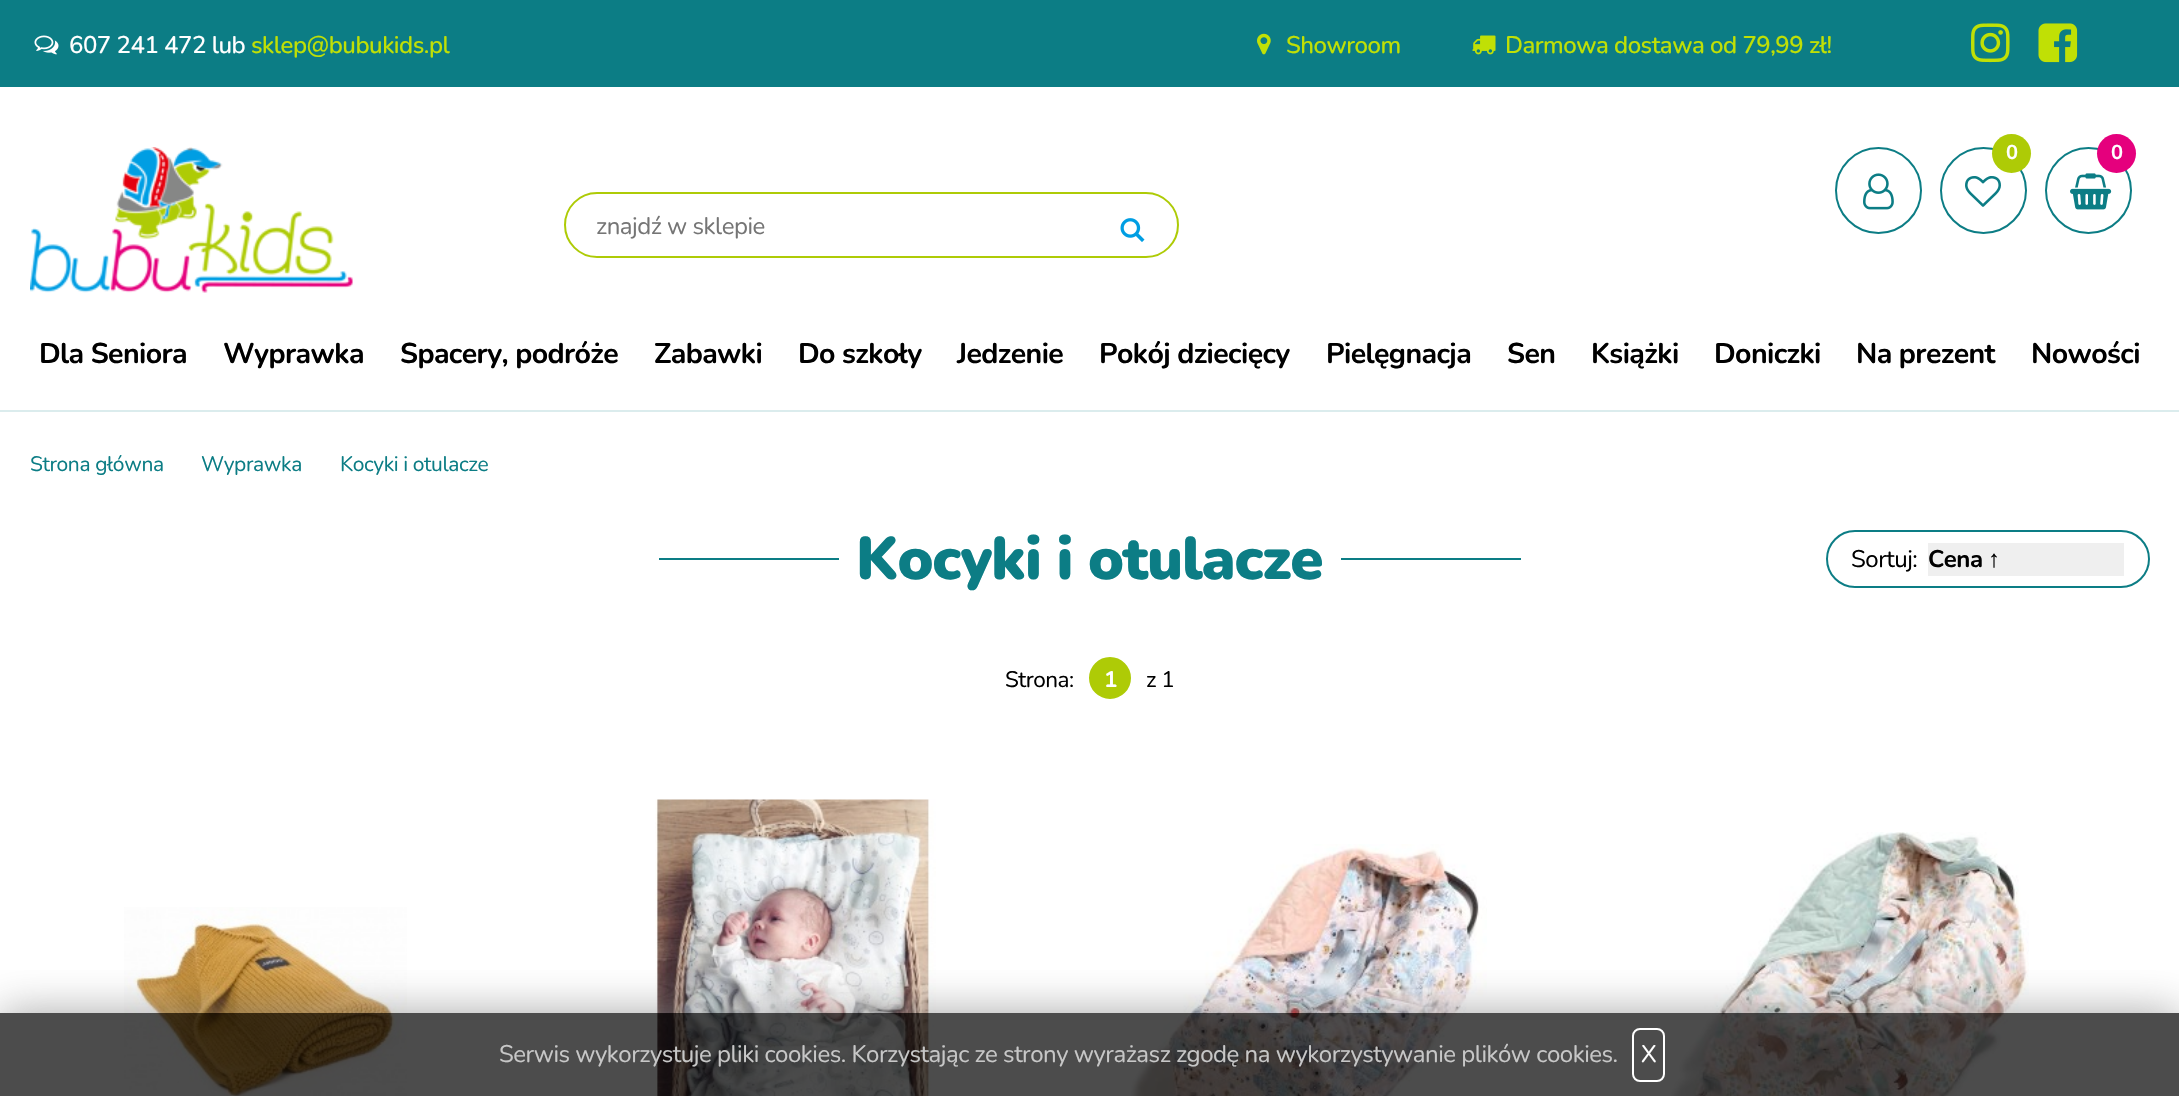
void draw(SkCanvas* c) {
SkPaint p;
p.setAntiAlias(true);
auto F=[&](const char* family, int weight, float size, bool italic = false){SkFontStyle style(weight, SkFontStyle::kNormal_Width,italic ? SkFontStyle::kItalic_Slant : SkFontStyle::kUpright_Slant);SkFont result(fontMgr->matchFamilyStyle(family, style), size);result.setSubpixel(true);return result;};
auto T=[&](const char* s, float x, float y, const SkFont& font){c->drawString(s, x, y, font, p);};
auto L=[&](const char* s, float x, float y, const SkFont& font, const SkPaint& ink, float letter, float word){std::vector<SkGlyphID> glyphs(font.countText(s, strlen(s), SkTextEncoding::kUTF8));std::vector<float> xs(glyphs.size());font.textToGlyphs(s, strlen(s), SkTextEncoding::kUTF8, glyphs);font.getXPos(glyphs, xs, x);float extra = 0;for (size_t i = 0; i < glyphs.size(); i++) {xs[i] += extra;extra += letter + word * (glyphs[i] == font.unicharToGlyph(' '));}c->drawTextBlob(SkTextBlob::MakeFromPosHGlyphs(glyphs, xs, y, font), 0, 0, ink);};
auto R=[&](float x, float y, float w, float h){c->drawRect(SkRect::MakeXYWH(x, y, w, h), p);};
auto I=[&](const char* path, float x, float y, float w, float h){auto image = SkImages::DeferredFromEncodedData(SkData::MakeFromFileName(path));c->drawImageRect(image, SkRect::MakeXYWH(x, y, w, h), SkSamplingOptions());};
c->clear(0xffffffff);
p.setColor(0xff0c7d85);
R(0,0,2179,87);
I("1.png",34,35,25,20);
auto f1 = F("Nunito",500,24);
p.setColor(0xffffffff);
L("607 241 472 lub",69,53,f1,p,-.48,0);
p.setColor(0xffc0e005);
L("sklep@bubukids.pl",251,53,f1,p,-.48,0);
I("2.png",1257,33,14,22);
L("Showroom",1286,53,f1,p,-.48,0);
I("3.png",1472,35,24,20);
L("Darmowa dostawa od 79,99 zł!",1505,53,f1,p,-.48,0);
I("4.png",1971,23,39,40);
I("5.png",2038,23,40,40);
I("6.png",30,147,323,146);
p.setStroke(true);
p.setStrokeWidth(2);
p.setColor(0xffaecb06);
c->drawRoundRect(SkRect::MakeXYWH(565,193,613,64),32,32,p);
auto f2 = F("Nunito",400,24);
p.setStroke(false);
p.setColor(0xff757575);
L("znajdź w sklepie",596,234,f2,p,-.48,0);
I("7.png",1120,218,25,24);
p.setStroke(true);
p.setColor(0xff0c7d85);
c->drawCircle(1878.5,190.5,42.5,p);
I("8.png",1863,173,31,37);
c->drawCircle(1983.5,190.5,42.5,p);
p.setStroke(false);
p.setColor(0xffaecb06);
c->drawCircle(2011.5,153.5,19.5,p);
auto f3 = F("Nunito",700,20);
p.setColor(0xffffffff);
T("0",2006,159,f3);
I("9.png",1965,176,36,31);
p.setStroke(true);
p.setColor(0xff0c7d85);
c->drawCircle(2088.5,190.5,42.5,p);
p.setStroke(false);
p.setColor(0xffe5007d);
c->drawCircle(2116.5,153.5,19.5,p);
p.setColor(0xffffffff);
T("0",2111,159,f3);
I("10.png",2070,173,42,37);
auto f4 = F("Nunito",700,28.5);
p.setColor(0xff000000);
L("Dla Seniora",39,363,f4,p,-.6,0);
L("Wyprawka",223,363,f4,p,-.6,0);
L("Spacery, podróże",400,363,f4,p,-.6,0);
L("Zabawki",654,363,f4,p,-.6,0);
L("Do szkoły",798,363,f4,p,-.6,0);
L("Jedzenie",957,363,f4,p,-.6,0);
L("Pokój dziecięcy",1099,363,f4,p,-.6,0);
L("Pielęgnacja",1326,363,f4,p,-.6,0);
L("Sen",1507,363,f4,p,-.6,0);
L("Książki",1591,363,f4,p,-.6,0);
L("Doniczki",1714,363,f4,p,-.6,0);
L("Na prezent",1856,363,f4,p,-.6,0);
L("Nowości",2031,363,f4,p,-.6,0);
p.setColor(0xffdbeced);
R(0,410,2179,2);
auto f5 = F("Nunito",400,21);
p.setColor(0xff0c7d85);
L("Strona główna",30,471,f5,p,-.4,0);
L("Wyprawka",201,471,f5,p,-.4,0);
L("Kocyki i otulacze",340,471,f5,p,-.4,0);
R(659,558,862,2);
p.setColor(0xffffffff);
R(839,558,502,2);
auto f6 = F("Nunito",900,60);
p.setColor(0xff0c7d85);
L("Kocyki i otulacze",856,579,f6,p,-1.25,0);
p.setStroke(true);
c->drawRoundRect(SkRect::MakeXYWH(1827,531,322,56),28,28,p);
p.setStroke(false);
p.setColor(0xff000000);
L("Sortuj:",1851,567,f2,p,-.48,0);
p.setColor(0xffefefef);
R(1928,543,196,33);
auto f7 = F("Nunito",700,24);
p.setColor(0xff000000);
L("Cena",1928,567,f7,p,-.48,0);
auto f8 = F("Liberation Sans",700,24);
L("↑",1988,567,f8,p,-.48,0);
auto f9 = F("Nunito",400,22.5);
L("Strona:",1005,687,f9,p,-.5,0);
p.setColor(0xffaecb06);
c->drawCircle(1110,678,20,p);
p.setStroke(true);
c->drawCircle(1110,678,20,p);
auto f10 = F("Nunito",700,22.5);
p.setStroke(false);
p.setColor(0xffffffff);
L("1",1104,687,f10,p,-.5,0);
p.setColor(0xff000000);
L("z 1",1146,687,f9,p,-.5,0);
I("11.png",124,907,283,189);
I("12.png",655,799,281,297);
I("13.png",1131,844,356,252);
I("14.png",1671,832,358,264);
c->save();
c->clipRect(SkRect::MakeXYWH(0,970,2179,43));
p.setColor(0xb3808080);
p.setMaskFilter(SkMaskFilter::MakeBlur(kNormal_SkBlurStyle, 22.5));
c->drawRect(SkRect::MakeXYWH(0,1013,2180,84),p);
p.setMaskFilter(nullptr);
c->restore();
p.setColor(0xb3000000);
R(0,1013,2179,83);
p.setColor(0xffc7c7c7);
L("Serwis wykorzystuje pliki cookies. Korzystając ze strony wyrażasz zgodę na wykorzystywanie plików cookies.",499,1062,f2,p,-.48,0);
p.setStroke(true);
p.setColor(0xffffffff);
c->drawRoundRect(SkRect::MakeXYWH(1633,1029,31,52),7,7,p);
p.setStroke(false);
L("X",1641,1062,f2,p,-.48,0);
}
